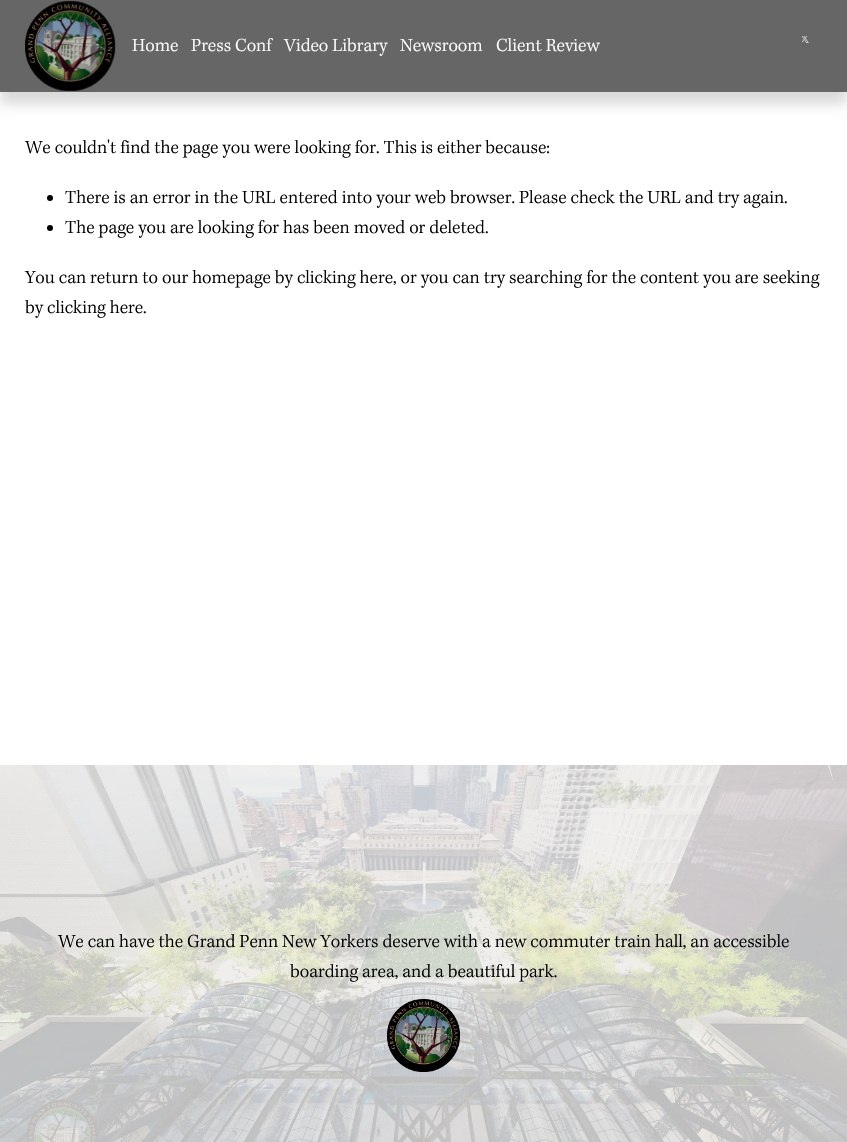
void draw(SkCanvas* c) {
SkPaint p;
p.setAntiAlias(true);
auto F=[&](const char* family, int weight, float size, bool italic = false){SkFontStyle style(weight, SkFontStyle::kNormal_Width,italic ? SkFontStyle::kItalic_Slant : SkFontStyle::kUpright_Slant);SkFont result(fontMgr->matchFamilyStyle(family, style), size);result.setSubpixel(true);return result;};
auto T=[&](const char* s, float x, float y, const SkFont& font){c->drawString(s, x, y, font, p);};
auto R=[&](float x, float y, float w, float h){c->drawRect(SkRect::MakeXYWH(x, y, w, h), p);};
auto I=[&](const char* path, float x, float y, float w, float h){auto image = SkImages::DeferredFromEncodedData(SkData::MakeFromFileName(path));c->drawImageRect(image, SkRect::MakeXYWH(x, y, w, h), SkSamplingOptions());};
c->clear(0xffffffff);
p.setColor(0xffd9d9d9);
p.setMaskFilter(SkMaskFilter::MakeBlur(kNormal_SkBlurStyle, 6));
c->drawRect(SkRect::MakeXYWH(0,12,847,92),p);
p.setMaskFilter(nullptr);
p.setColor(0xff666666);
R(0,0,847,92);
I("1.png",25,0,91,91);
auto f1 = F("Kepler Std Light",300,19.05);
p.setColor(0xffffffff);
T("Home",132,51,f1);
T("Press Conf",191,51,f1);
T("Video Library",284,51,f1);
T("Newsroom",400,51,f1);
T("Client Review",496,51,f1);
I("2.png",802,36,7,7);
p.setColor(0xff000000);
T("We couldn't find the page you were looking for. This is either because:",25,153,f1);
c->drawCircle(50,198,3,p);
T("There is an error in the URL entered into your web browser. Please check the URL and try again.",65,203,f1);
c->drawCircle(50,228,3,p);
T("The page you are looking for has been moved or deleted.",65,233,f1);
T("You can return to our homepage by clicking here, or you can try searching for the",25,283,f1);
T("content you are seeking",640,283,f1);
T("by clicking here.",25,313,f1);
I("3.png",0,765,847,377);
T("We can have the Grand Penn New Yorkers deserve with a new commuter train hall, an accessible",58,947,f1);
T("boarding area, and a beautiful park.",290,977,f1);
I("4.png",387,999,73,73);
}
